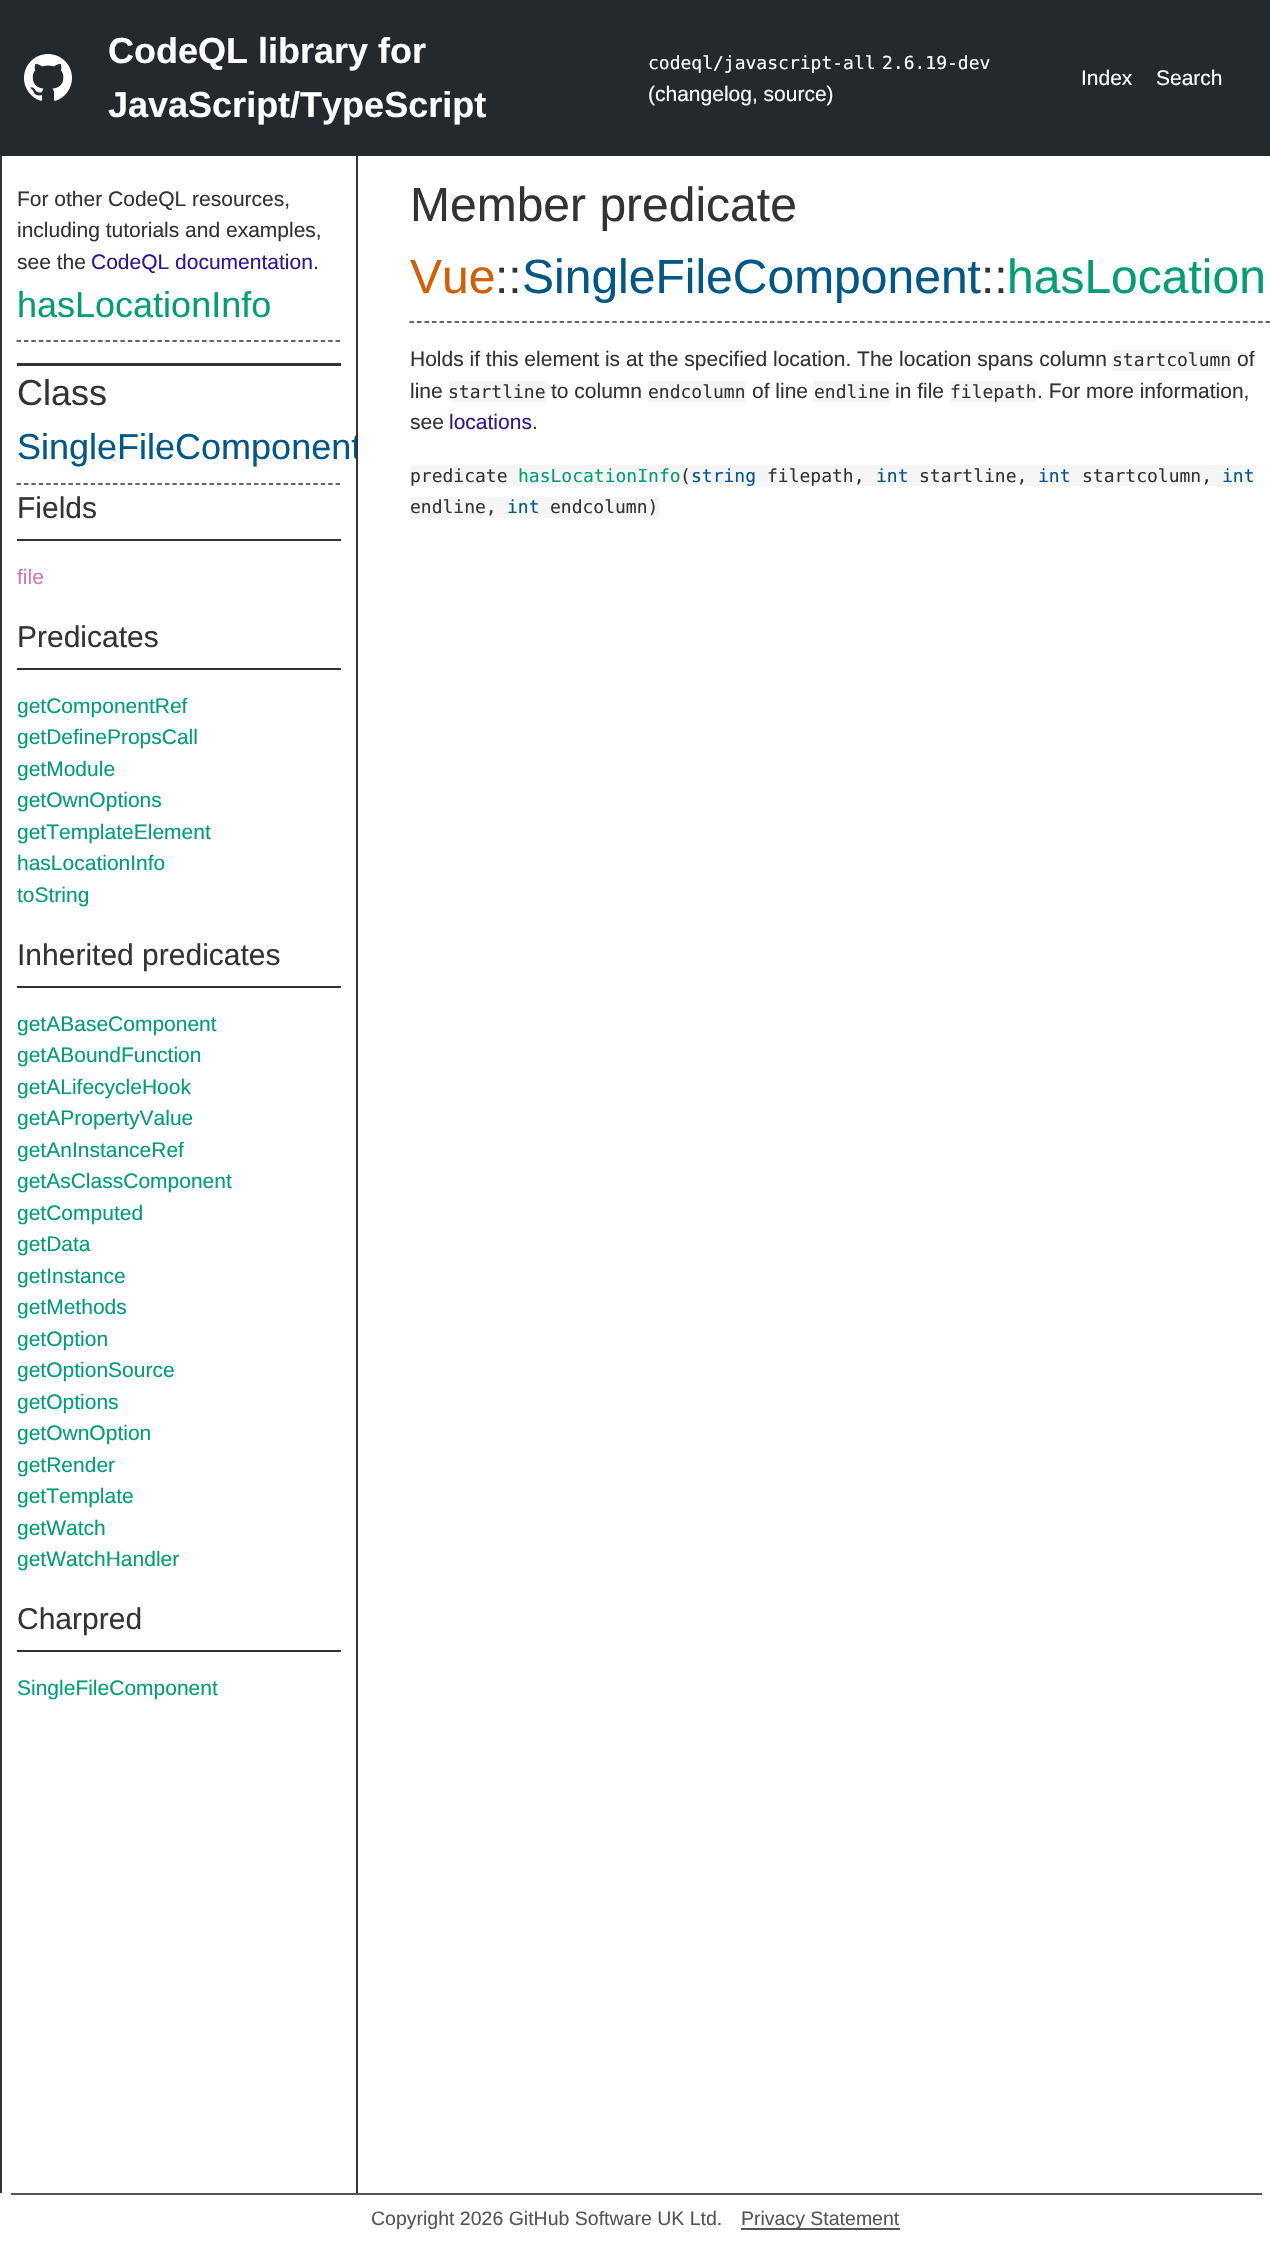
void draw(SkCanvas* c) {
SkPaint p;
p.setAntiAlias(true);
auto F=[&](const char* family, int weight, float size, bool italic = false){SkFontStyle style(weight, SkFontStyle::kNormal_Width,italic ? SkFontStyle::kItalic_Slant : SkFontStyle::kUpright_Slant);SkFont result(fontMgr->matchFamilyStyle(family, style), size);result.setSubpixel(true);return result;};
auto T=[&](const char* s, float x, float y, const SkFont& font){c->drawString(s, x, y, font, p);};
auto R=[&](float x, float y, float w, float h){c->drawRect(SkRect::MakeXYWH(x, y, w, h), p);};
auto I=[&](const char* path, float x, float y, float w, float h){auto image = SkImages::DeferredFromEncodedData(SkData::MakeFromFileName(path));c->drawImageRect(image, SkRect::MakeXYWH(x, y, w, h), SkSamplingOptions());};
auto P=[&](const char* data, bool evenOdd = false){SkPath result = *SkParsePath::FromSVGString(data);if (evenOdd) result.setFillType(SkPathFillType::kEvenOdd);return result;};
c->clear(0xffffffff);
p.setColor(0xff24292e);
R(0,0,1270,156);
I("1.png",24,54,48,47);
auto f1 = F("Liberation Sans",700,36);
p.setColor(0xffffffff);
T("CodeQL library for",108,63,f1);
T("JavaScript/TypeScript",108,117,f1);
auto f2 = F("DejaVu Sans Mono",400,18);
T("codeql/javascript-all",648,69,f2);
T("2.6.19-dev",882,69,f2);
auto f3 = F("Liberation Sans",400,21);
T("(changelog, source)",648,101,f3);
T("Index",1081,85,f3);
T("Search",1156,85,f3);
p.setColor(0xff333333);
R(356,156,2,2037);
R(0,156,2,2037);
R(17,363,324,3);
T("For other CodeQL resources,",17,206,f3);
T("including tutorials and examples,",17,237,f3);
T("see the",17,269,f3);
p.setColor(0xff2f1695);
T("CodeQL documentation",91,269,f3);
p.setColor(0xff333333);
T(".",313,269,f3);
p.setStroke(true);
p.setStrokeWidth(1.5);
p.setPathEffect(SkDashPathEffect::Make({{4.5f,2.92f}}, 0));
c->drawPath(P("M16.5 341h324"),p);
p.setPathEffect(nullptr);
auto f4 = F("Liberation Sans",400,36);
p.setStroke(false);
p.setColor(0xff009e73);
T("hasLocationInfo",17,317,f4);
p.setStroke(true);
p.setColor(0xff333333);
p.setPathEffect(SkDashPathEffect::Make({{4.5f,2.92f}}, 0));
c->drawPath(P("M16.5 484h324"),p);
p.setPathEffect(nullptr);
p.setStroke(false);
T("Class",17,405,f4);
c->save();
c->clipRect(SkRect::MakeXYWH(2,156,354,2037));
p.setColor(0xff005788);
T("SingleFileComponent",17,459,f4);
c->restore();
p.setColor(0xff333333);
R(17,539,324,2);
auto f5 = F("Liberation Sans",400,30);
T("Fields",17,518,f5);
p.setColor(0xffcd7aa7);
T("file",17,584,f3);
p.setColor(0xff333333);
R(17,668,324,2);
T("Predicates",17,647,f5);
p.setColor(0xff009e73);
T("getComponentRef",17,713,f3);
T("getDefinePropsCall",17,744,f3);
T("getModule",17,776,f3);
T("getOwnOptions",17,807,f3);
T("getTemplateElement",17,839,f3);
T("hasLocationInfo",17,870,f3);
T("toString",17,902,f3);
p.setColor(0xff333333);
R(17,986,324,2);
T("Inherited predicates",17,965,f5);
p.setColor(0xff009e73);
T("getABaseComponent",17,1031,f3);
T("getABoundFunction",17,1062,f3);
T("getALifecycleHook",17,1094,f3);
T("getAPropertyValue",17,1125,f3);
T("getAnInstanceRef",17,1157,f3);
T("getAsClassComponent",17,1188,f3);
T("getComputed",17,1220,f3);
T("getData",17,1251,f3);
T("getInstance",17,1283,f3);
T("getMethods",17,1314,f3);
T("getOption",17,1346,f3);
T("getOptionSource",17,1377,f3);
T("getOptions",17,1409,f3);
T("getOwnOption",17,1440,f3);
T("getRender",17,1472,f3);
T("getTemplate",17,1503,f3);
T("getWatch",17,1535,f3);
T("getWatchHandler",17,1566,f3);
p.setColor(0xff333333);
R(17,1650,324,2);
T("Charpred",17,1629,f5);
p.setColor(0xff009e73);
T("SingleFileComponent",17,1695,f3);
p.setStroke(true);
p.setColor(0xff333333);
p.setPathEffect(SkDashPathEffect::Make({{4.5f,3.01f}}, 0));
c->drawPath(P("M409.5 322h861"),p);
p.setPathEffect(nullptr);
auto f6 = F("Liberation Sans",400,48);
p.setStroke(false);
T("Member predicate",410,221,f6);
p.setColor(0xffd55e00);
T("Vue",410,293,f6);
p.setColor(0xff333333);
T("::",495,293,f6);
p.setColor(0xff005788);
T("SingleFileComponent",522,293,f6);
p.setColor(0xff333333);
T("::",981,293,f6);
p.setColor(0xff009e73);
T("hasLocation",1007,293,f6);
p.setColor(0xff333333);
T("Holds if this element is at the specified location. The location spans column",410,366,f3);
p.setColor(0xfff5f5f5);
R(1112,350,120,21);
p.setColor(0xff333333);
T("startcolumn",1112,366,f2);
T("of",1237,366,f3);
T("line",410,398,f3);
p.setColor(0xfff5f5f5);
R(449,381,97,21);
p.setColor(0xff333333);
T("startline",448,398,f2);
T("to column",551,398,f3);
p.setColor(0xfff5f5f5);
R(648,381,98,21);
p.setColor(0xff333333);
T("endcolumn",648,398,f2);
T("of line",752,398,f3);
p.setColor(0xfff5f5f5);
R(813,381,77,21);
p.setColor(0xff333333);
T("endline",814,398,f2);
T("in file",895,398,f3);
p.setColor(0xfff5f5f5);
R(950,381,87,21);
p.setColor(0xff333333);
T("filepath",950,398,f2);
T(". For more information,",1037,398,f3);
T("see",410,429,f3);
p.setColor(0xff2f1695);
T("locations",449,429,f3);
p.setColor(0xff333333);
T(".",532,429,f3);
p.setColor(0xfff5f5f5);
R(410,465,846,21);
p.setColor(0xff333333);
T("predicate",410,482,f2);
p.setColor(0xff009e73);
T("hasLocationInfo",518,482,f2);
p.setColor(0xff333333);
T("(",680,482,f2);
p.setColor(0xff005788);
T("string",691,482,f2);
p.setColor(0xff333333);
T("filepath,",767,482,f2);
p.setColor(0xff005788);
T("int",876,482,f2);
p.setColor(0xff333333);
T("startline,",919,482,f2);
p.setColor(0xff005788);
T("int",1038,482,f2);
p.setColor(0xff333333);
T("startcolumn,",1082,482,f2);
p.setColor(0xff005788);
T("int",1222,482,f2);
p.setColor(0xfff5f5f5);
R(410,497,249,21);
p.setColor(0xff333333);
T("endline,",410,513,f2);
p.setColor(0xff005788);
T("int",507,513,f2);
p.setColor(0xff333333);
T("endcolumn)",550,513,f2);
p.setColor(0xff555555);
R(11,2193,1251,2);
auto f7 = F("Liberation Sans",400,19.5);
T("Copyright 2026 GitHub Software UK Ltd.",371,2225,f7);
R(741,2228,159,2);
T("Privacy Statement",741,2225,f7);
}
